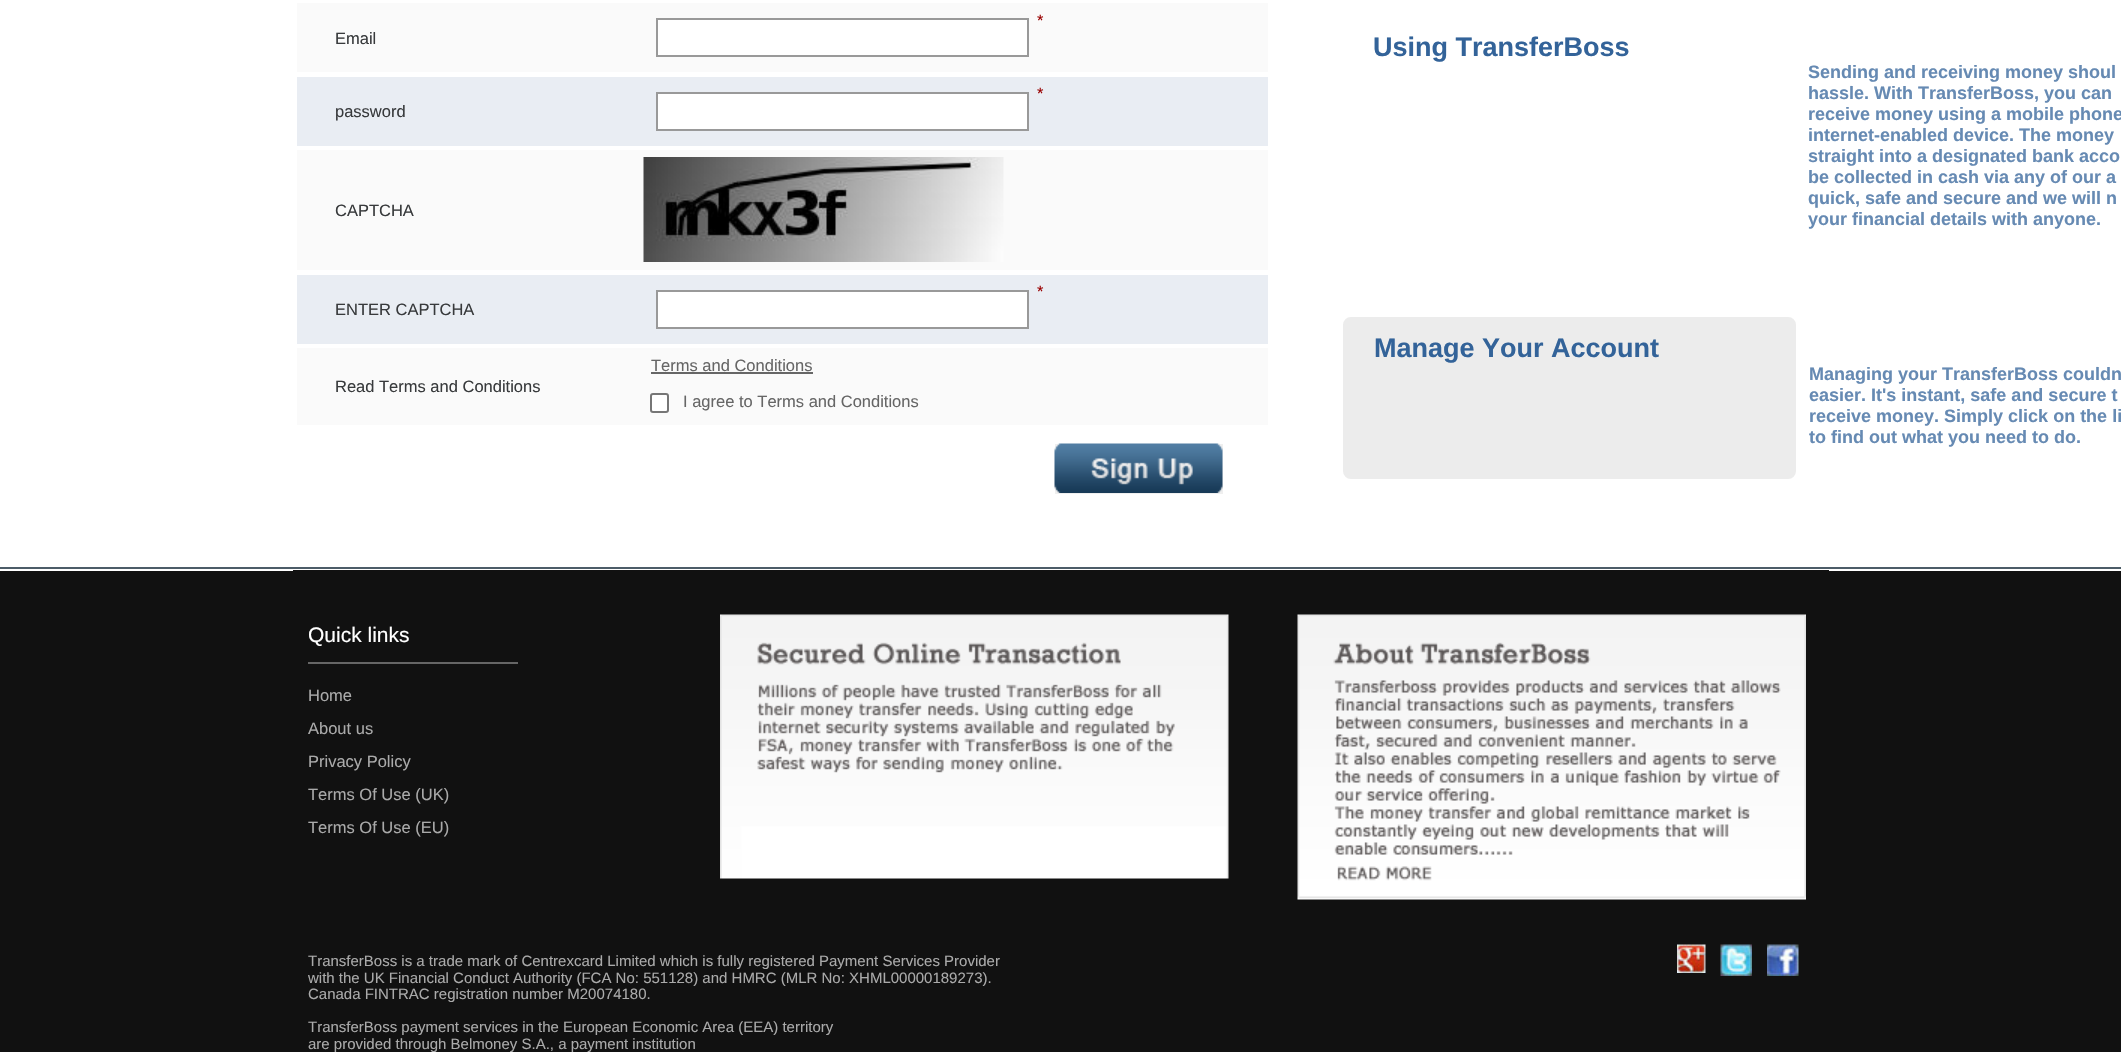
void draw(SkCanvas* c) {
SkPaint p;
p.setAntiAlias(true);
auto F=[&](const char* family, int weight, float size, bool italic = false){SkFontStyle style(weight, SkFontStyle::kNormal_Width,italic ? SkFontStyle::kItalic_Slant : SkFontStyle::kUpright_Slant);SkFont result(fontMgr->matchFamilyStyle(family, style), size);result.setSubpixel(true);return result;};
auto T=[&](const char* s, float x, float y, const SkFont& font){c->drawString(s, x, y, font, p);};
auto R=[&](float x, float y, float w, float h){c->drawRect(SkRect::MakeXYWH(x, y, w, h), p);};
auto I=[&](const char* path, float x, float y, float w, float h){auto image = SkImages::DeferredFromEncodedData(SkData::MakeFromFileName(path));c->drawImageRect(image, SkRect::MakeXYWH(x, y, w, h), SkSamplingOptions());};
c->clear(0xffffffff);
p.setColor(0xfffafafa);
R(297,3,971,69);
p.setColor(0xffffffff);
c->drawRect(SkRect::MakeXYWH(657,19,371,37),p);
p.setStroke(true);
p.setStrokeWidth(2);
p.setColor(0xff999999);
c->drawRect(SkRect::MakeXYWH(657,19,371,37),p);
auto f1 = F("Liberation Sans",400,16.5);
p.setStroke(false);
p.setColor(0xff990000);
T("*",1037,26,f1);
p.setColor(0xff383a3c);
T("Email",335,44,f1);
p.setColor(0xffe9edf3);
R(297,77,971,69);
p.setColor(0xff990000);
T("*",1037,99,f1);
p.setColor(0xffffffff);
c->drawRect(SkRect::MakeXYWH(657,93,371,37),p);
p.setStroke(true);
p.setColor(0xff999999);
c->drawRect(SkRect::MakeXYWH(657,93,371,37),p);
p.setStroke(false);
p.setColor(0xff383a3c);
T("password",335,117,f1);
p.setColor(0xfffafafa);
R(297,150,971,120);
p.setColor(0xff383a3c);
T("CAPTCHA",335,216,f1);
I("1.png",643,157,361,105);
p.setColor(0xffe9edf3);
R(297,275,971,69);
p.setColor(0xff990000);
T("*",1037,297,f1);
p.setColor(0xffffffff);
c->drawRect(SkRect::MakeXYWH(657,291,371,37),p);
p.setStroke(true);
p.setColor(0xff999999);
c->drawRect(SkRect::MakeXYWH(657,291,371,37),p);
p.setStroke(false);
p.setColor(0xff383a3c);
T("ENTER CAPTCHA",335,315,f1);
p.setColor(0xfffafafa);
R(297,348,971,77);
p.setColor(0xff383a3c);
T("Read Terms and Conditions",335,392,f1);
p.setColor(0xff666666);
T("Terms and Conditions",651,371,f1);
R(651,372,162,2);
p.setColor(0xffffffff);
c->drawRoundRect(SkRect::MakeXYWH(651,394,17,18),2,2,p);
p.setStroke(true);
p.setColor(0xff767676);
c->drawRoundRect(SkRect::MakeXYWH(651,394,17,18),2,2,p);
p.setStroke(false);
p.setColor(0xff666666);
T("I agree to Terms and Conditions",683,407,f1);
p.setColor(0xffefefef);
R(1055,444,168,50);
I("2.png",1054,443,169,50);
auto f2 = F("Liberation Sans",700,27);
p.setColor(0xff336399);
T("Using TransferBoss",1373,56,f2);
auto f3 = F("Liberation Sans",700,18);
p.setColor(0xff668ab3);
T("Sending and receiving money shoul",1808,78,f3);
T("hassle. With TransferBoss, you can",1808,99,f3);
T("receive money using a mobile phone",1808,120,f3);
T("internet-enabled device. The money",1808,141,f3);
T("straight into a designated bank acco",1808,162,f3);
T("be collected in cash via any of our a",1808,183,f3);
T("quick, safe and secure and we will n",1808,204,f3);
T("your financial details with anyone.",1808,225,f3);
p.setColor(0xffececec);
c->drawRoundRect(SkRect::MakeXYWH(1344,318,451,160),7,7,p);
p.setStroke(true);
c->drawRoundRect(SkRect::MakeXYWH(1344,318,451,160),7,7,p);
p.setStroke(false);
p.setColor(0xff336399);
T("Manage Your Account",1374,357,f2);
p.setColor(0xff668ab3);
T("Managing your TransferBoss couldn",1809,380,f3);
T("easier. It's instant, safe and secure t",1809,401,f3);
T("receive money. Simply click on the li",1809,422,f3);
T("to find out what you need to do.",1809,443,f3);
p.setColor(0xff111111);
R(0,571,2121,481);
p.setColor(0xff4c5c68);
R(0,567,2121,2);
p.setColor(0xff111111);
R(293,570,1536,1);
auto f4 = F("Liberation Sans",400,21);
p.setColor(0xffffffff);
T("Quick links",308,642,f4);
p.setColor(0xff666666);
R(308,662,210,2);
p.setColor(0xffaaaaaa);
T("Home",308,701,f1);
T("About us",308,734,f1);
T("Privacy Policy",308,767,f1);
T("Terms Of Use (UK)",308,800,f1);
T("Terms Of Use (EU)",308,833,f1);
I("3.png",720,614,509,265);
I("4.png",1297,614,509,286);
auto f5 = F("Liberation Sans",400,15);
T("TransferBoss is a trade mark of Centrexcard Limited which is fully registered Payment Services Provider",308,966,f5);
T("with the UK Financial Conduct Authority (FCA No: 551128) and HMRC (MLR No: XHML00000189273).",308,983,f5);
T("Canada FINTRAC registration number M20074180.",308,999,f5);
T("TransferBoss payment services in the European Economic Area (EEA) territory",308,1032,f5);
T("are provided through Belmoney S.A., a payment institution",308,1049,f5);
I("5.png",1677,944,29,29);
I("6.png",1720,944,32,32);
I("7.png",1767,944,32,32);
}
